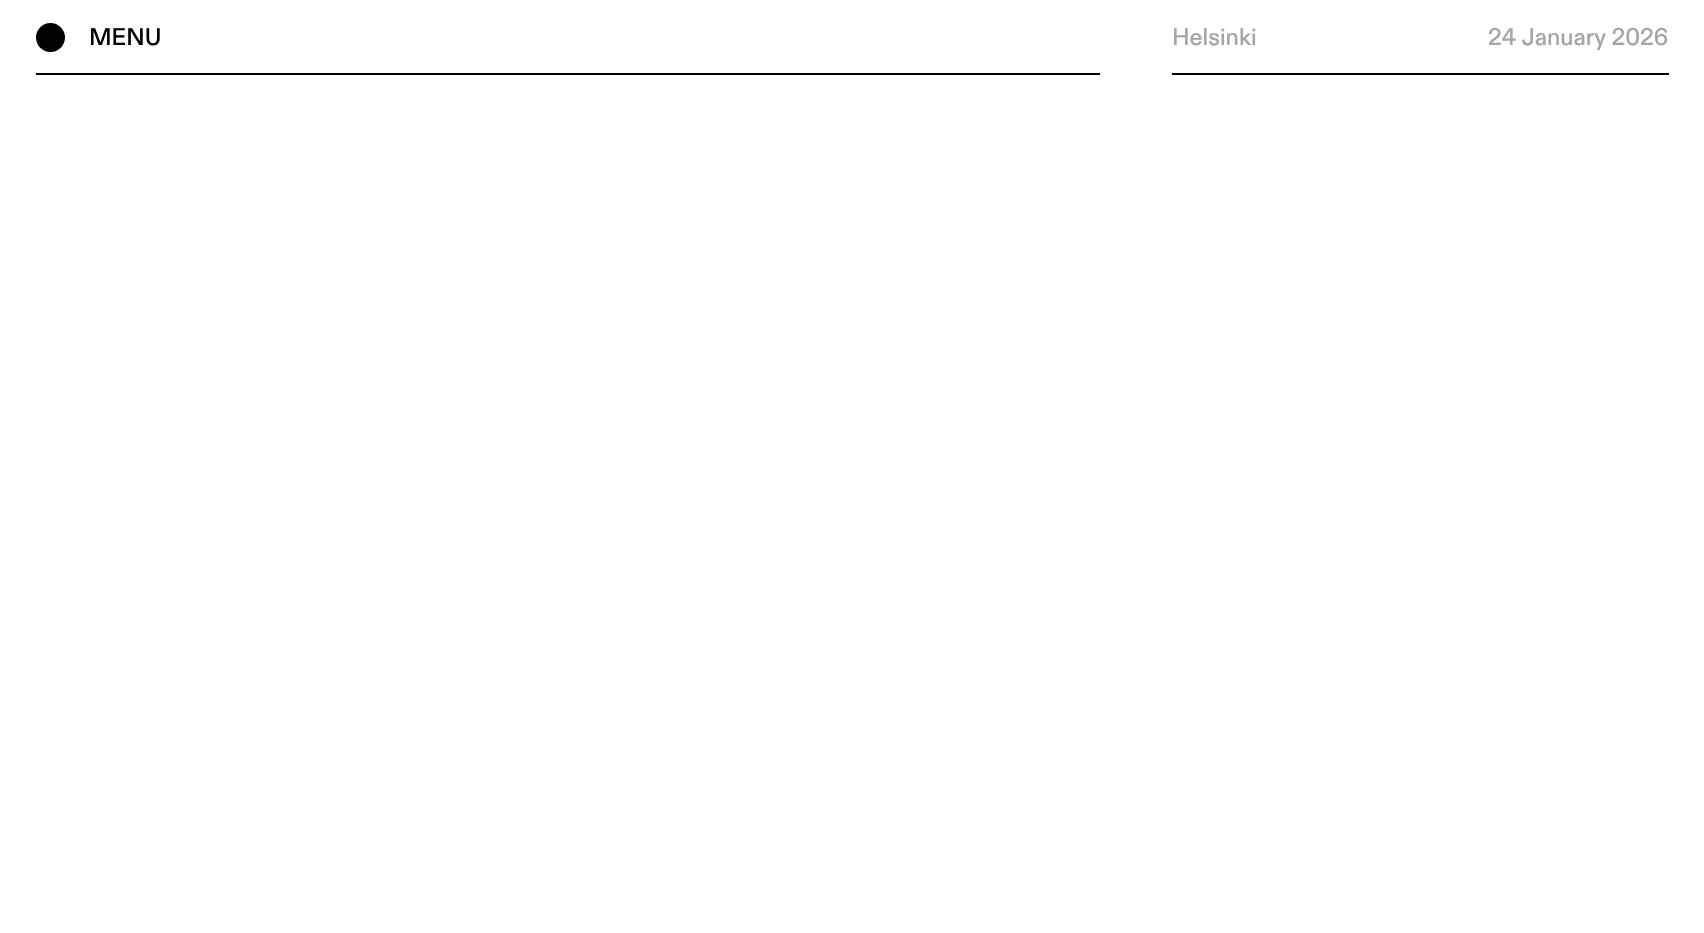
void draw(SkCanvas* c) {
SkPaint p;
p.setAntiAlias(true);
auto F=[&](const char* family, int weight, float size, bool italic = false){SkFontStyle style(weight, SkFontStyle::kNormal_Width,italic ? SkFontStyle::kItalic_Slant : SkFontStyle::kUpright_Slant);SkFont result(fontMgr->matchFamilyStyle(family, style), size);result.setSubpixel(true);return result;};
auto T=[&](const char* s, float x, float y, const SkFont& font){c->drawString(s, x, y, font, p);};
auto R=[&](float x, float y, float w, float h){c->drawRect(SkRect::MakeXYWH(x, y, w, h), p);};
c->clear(0xffffffff);
p.setColor(0xff000000);
R(36,73,1064,2);
c->drawCircle(50.5,37.5,13.5,p);
p.setStroke(true);
p.setStrokeWidth(2);
c->drawCircle(50.5,37.5,13.5,p);
auto f1 = F("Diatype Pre",500,24);
p.setStroke(false);
T("MENU",89,45,f1);
R(1172,73,497,2);
p.setColor(0xffa5a5a5);
T("Helsinki",1172,45,f1);
T("24 January 2026",1488,45,f1);
}
